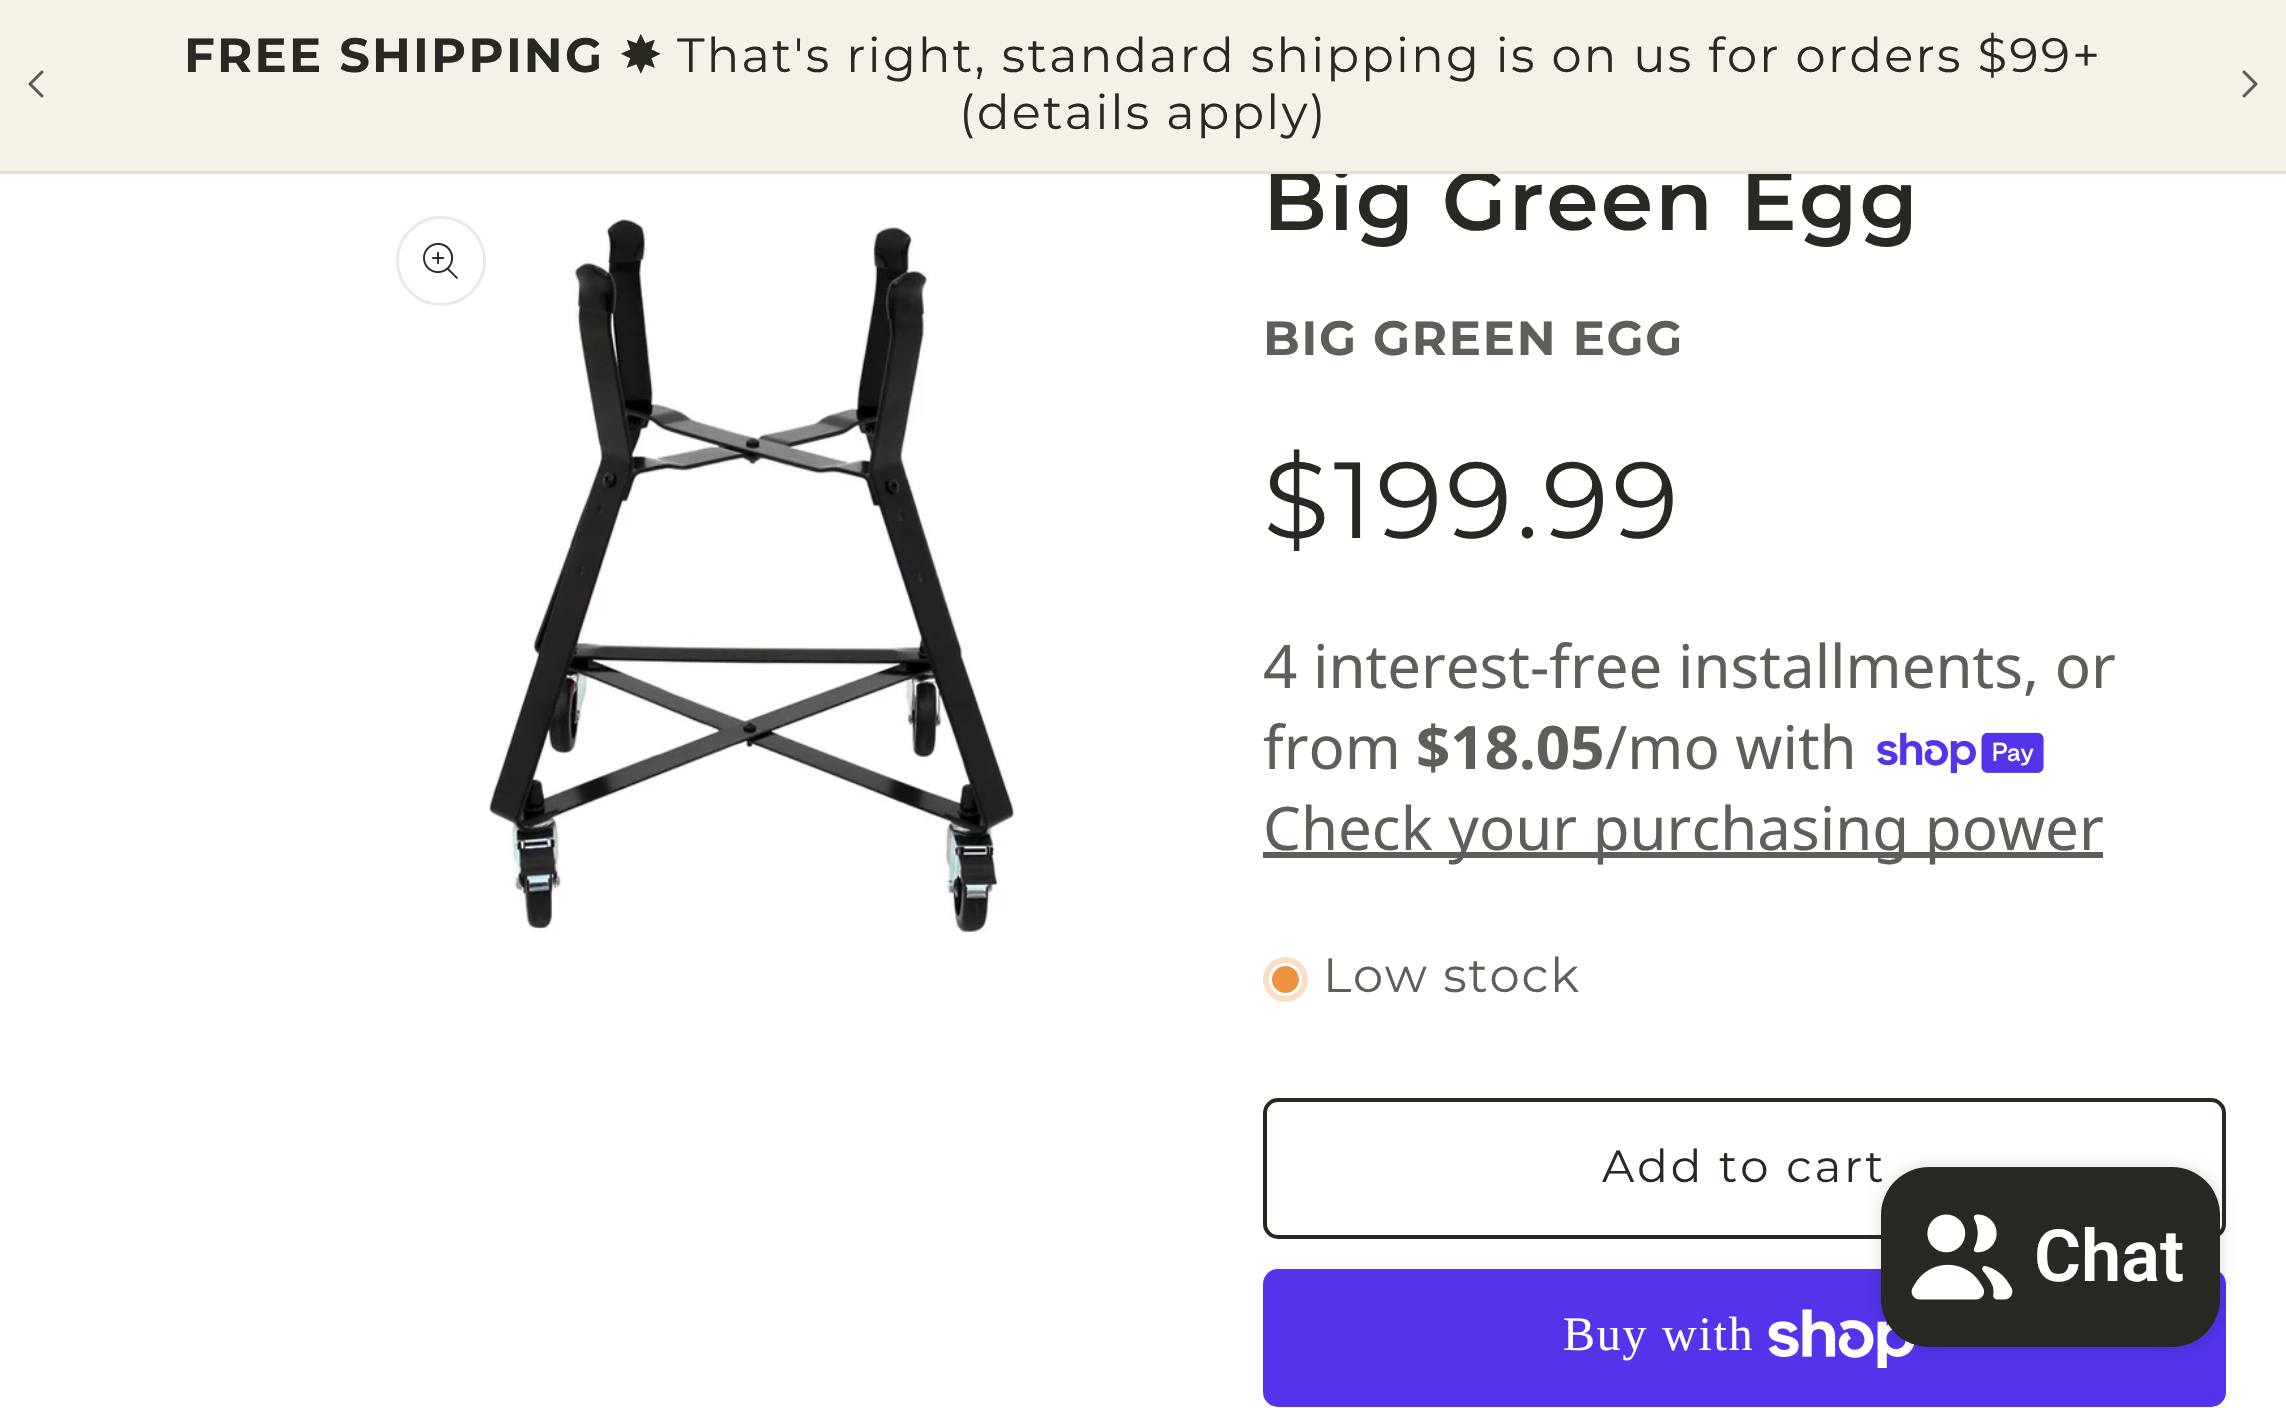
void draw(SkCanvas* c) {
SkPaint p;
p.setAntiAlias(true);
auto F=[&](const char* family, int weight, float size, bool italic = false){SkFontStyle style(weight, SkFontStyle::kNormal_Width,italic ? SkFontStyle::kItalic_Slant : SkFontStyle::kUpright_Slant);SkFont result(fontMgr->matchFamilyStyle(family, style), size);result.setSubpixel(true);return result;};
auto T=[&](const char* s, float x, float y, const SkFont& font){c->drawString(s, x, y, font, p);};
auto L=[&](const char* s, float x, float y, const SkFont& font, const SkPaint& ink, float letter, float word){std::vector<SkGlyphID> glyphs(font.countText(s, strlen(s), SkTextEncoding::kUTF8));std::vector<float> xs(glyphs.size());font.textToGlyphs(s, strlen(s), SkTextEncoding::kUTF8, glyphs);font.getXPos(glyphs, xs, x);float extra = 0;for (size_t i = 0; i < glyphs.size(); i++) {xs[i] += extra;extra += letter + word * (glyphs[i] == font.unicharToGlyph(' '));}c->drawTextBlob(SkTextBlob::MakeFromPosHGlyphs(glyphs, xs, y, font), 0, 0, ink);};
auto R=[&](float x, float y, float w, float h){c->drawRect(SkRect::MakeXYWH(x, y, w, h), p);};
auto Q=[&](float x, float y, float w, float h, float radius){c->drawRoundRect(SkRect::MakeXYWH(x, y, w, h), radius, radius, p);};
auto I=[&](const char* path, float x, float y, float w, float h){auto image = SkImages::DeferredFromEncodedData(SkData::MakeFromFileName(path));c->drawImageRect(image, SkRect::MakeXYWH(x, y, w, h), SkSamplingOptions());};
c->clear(0xffffffff);
auto f1 = F("Montserrat",600,84);
p.setColor(0xff292822);
L("Big Green Egg",1263,230,f1,p,2.25,0);
p.setColor(0xfff5f1e7);
R(0,0,2286,171);
p.setColor(0xffe5e1d7);
R(0,171,2286,3);
I("1.png",28,70,16,28);
auto f2 = F("Montserrat",700,48);
p.setColor(0xff292822);
L("FREE SHIPPING",184,72,f2,p,2.25,0);
auto f3 = F("DejaVu Sans",700,48);
L("✸",620,72,f3,p,2.25,0);
auto f4 = F("Montserrat",400,48);
L("That's right, standard shipping is on us for orders $99+",677,72,f4,p,2.25,0);
L("(details apply)",959,129,f4,p,2.25,0);
I("2.png",2242,70,16,28);
p.setStroke(true);
p.setStrokeWidth(3);
p.setColor(0xffeaeae9);
c->drawCircle(441,261,43.5,p);
I("3.png",423,242,35,37);
I("4.png",488,218,526,715);
p.setStroke(false);
p.setColor(0xff5f5e59);
L("BIG GREEN EGG",1263,355,f2,p,1.75,0);
auto f5 = F("Montserrat",400,108);
p.setColor(0xff292822);
L("$199.99",1263,538,f5,p,4,0);
auto f6 = F("Noto Sans",400,60);
p.setColor(0xff5f5e59);
T("4 interest-free installments, or",1263,688,f6);
T("from",1263,769,f6);
auto f7 = F("Noto Sans",700,60);
T("$18.05",1416,769,f7);
T("/mo with",1605,769,f6);
I("5.png",1877,732,167,42);
R(1263,852,840,6);
T("Check your purchasing power",1263,850,f6);
p.setColor(0xfffadfc6);
c->drawCircle(1285.5,979.5,22.5,p);
p.setColor(0xffee9441);
c->drawCircle(1285.5,979.5,15,p);
p.setStroke(true);
p.setColor(0xffffffff);
c->drawCircle(1285.5,979.5,15,p);
p.setStroke(false);
p.setColor(0xff5f5e59);
L("Low stock",1323,992,f4,p,1.75,0);
p.setStroke(true);
p.setStrokeWidth(4);
p.setColor(0xff292822);
c->drawRoundRect(SkRect::MakeXYWH(1265,1100,959,137),13,13,p);
auto f8 = F("Montserrat",400,45);
p.setStroke(false);
L("Add to cart",1602,1182,f8,p,3,0);
p.setColor(0xff5433eb);
Q(1263,1269,963,138,15);
auto f9 = F("Liberation Serif",400,48);
p.setColor(0xffffffff);
L("Buy with",1563,1350,f9,p,1.75,0);
I("6.png",1768,1309,147,59);
p.setColor(0x26000000);
p.setMaskFilter(SkMaskFilter::MakeBlur(kNormal_SkBlurStyle, 7.5));
c->drawRoundRect(SkRect::MakeXYWH(1881,1167,339,180),48,48,p);
p.setMaskFilter(nullptr);
p.setColor(0xff292822);
Q(1881,1167,339,180,48);
I("7.png",1911,1214,102,86);
auto f10 = F("Roboto",600,72);
p.setColor(0xffffffff);
T("Chat",2034,1281,f10);
}
